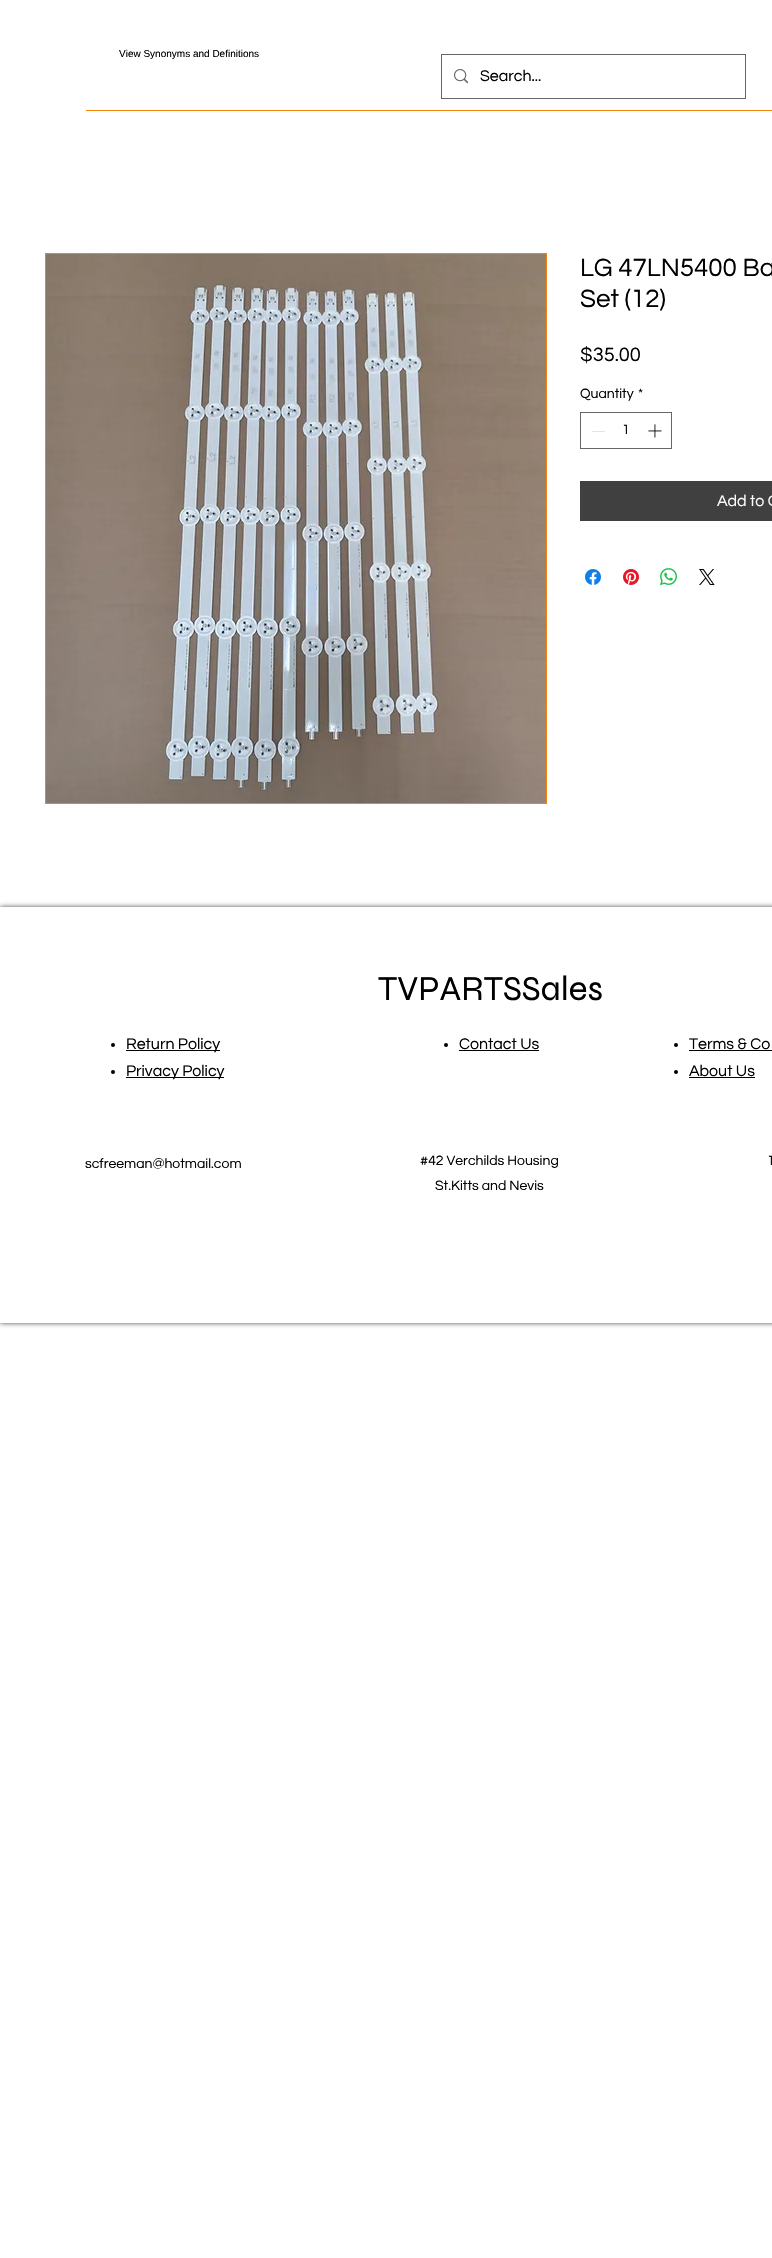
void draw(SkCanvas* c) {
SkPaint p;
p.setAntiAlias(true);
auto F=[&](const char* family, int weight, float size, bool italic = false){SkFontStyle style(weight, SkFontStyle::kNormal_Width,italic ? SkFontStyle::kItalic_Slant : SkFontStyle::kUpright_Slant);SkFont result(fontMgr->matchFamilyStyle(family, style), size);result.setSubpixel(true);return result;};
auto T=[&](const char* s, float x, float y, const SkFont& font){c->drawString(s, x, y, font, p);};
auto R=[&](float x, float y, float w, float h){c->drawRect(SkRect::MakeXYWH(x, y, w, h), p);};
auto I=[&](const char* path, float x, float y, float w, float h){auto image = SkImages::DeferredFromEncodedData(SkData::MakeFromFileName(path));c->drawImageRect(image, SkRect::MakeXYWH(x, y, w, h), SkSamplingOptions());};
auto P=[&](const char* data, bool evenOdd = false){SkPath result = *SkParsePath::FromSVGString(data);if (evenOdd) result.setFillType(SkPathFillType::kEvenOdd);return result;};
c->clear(0xffffffff);
auto f1 = F("Liberation Sans",400,10);
p.setColor(0xff000000);
T("View Synonyms and Definitions",119,57,f1);
c->save();
c->clipPath(P("M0 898h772v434h-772zm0 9h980v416h-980z",true),true);
p.setColor(0xb3000000);
p.setMaskFilter(SkMaskFilter::MakeBlur(kNormal_SkBlurStyle, 2.5));
c->drawRect(SkRect::MakeXYWH(0,907,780,416),p);
p.setMaskFilter(nullptr);
c->restore();
p.setColor(0xff000000);
c->drawCircle(676,1045,2,p);
auto f2 = F("Questrial",400,16);
T("Terms & Co",689,1049,f2);
R(689,1050,83,1);
c->drawCircle(676,1072,2,p);
T("About Us",689,1076,f2);
R(689,1077,66,1);
auto f3 = F("Syne",400,35);
T("TVPARTSSales",378,1000,f3);
c->drawCircle(113,1045,2,p);
R(126,1050,94,1);
T("Return Policy",126,1049,f2);
c->drawCircle(113,1072,2,p);
R(126,1077,98,1);
T("Privacy Policy",126,1076,f2);
c->drawCircle(446,1045,2,p);
T("Contact Us",459,1049,f2);
R(459,1050,80,1);
auto f4 = F("Questrial",400,14);
T("scfreeman@hotmail.com",85,1168,f4);
T("#42 Verchilds Housing",420,1165,f4);
T("St.Kitts and Nevis",435,1190,f4);
T("1",767,1165,f4);
p.setStroke(true);
p.setStrokeWidth(1);
p.setColor(0xff666666);
c->drawRect(SkRect::MakeXYWH(441.5,54.5,304,44),p);
I("1.png",454,69,14,15);
p.setStroke(false);
p.setColor(0xff000000);
T("Search...",480,81,f2);
p.setColor(0xfff78308);
R(86,110,686,1);
p.setStroke(true);
c->drawRect(SkRect::MakeXYWH(45.5,253.5,501,550),p);
I("2.png",46,254,500,549);
auto f5 = F("Questrial",400,26);
p.setStroke(false);
p.setColor(0xff000000);
T("LG 47LN5400 Ba",580,276,f5);
T("Set (12)",580,307,f5);
auto f6 = F("Questrial",400,20);
T("$35.00",580,361,f6);
T("Quantity",580,398,f4);
T("*",638,398,f4);
p.setStroke(true);
p.setColor(0xff666666);
c->drawRect(SkRect::MakeXYWH(580.5,412.5,91,36),p);
p.setStroke(false);
p.setColor(0xffe3e3e3);
R(592,431,13,1);
p.setColor(0xff000000);
T("1",622,434,f4);
I("3.png",648,424,14,14);
p.setColor(0xff404040);
R(580,481,192,40);
p.setColor(0xfffefefe);
T("Add to C",717,506,f2);
I("4.png",585,569,16,16);
I("5.png",623,569,16,16);
I("6.png",660,568,17,17);
I("7.png",699,569,16,16);
}
